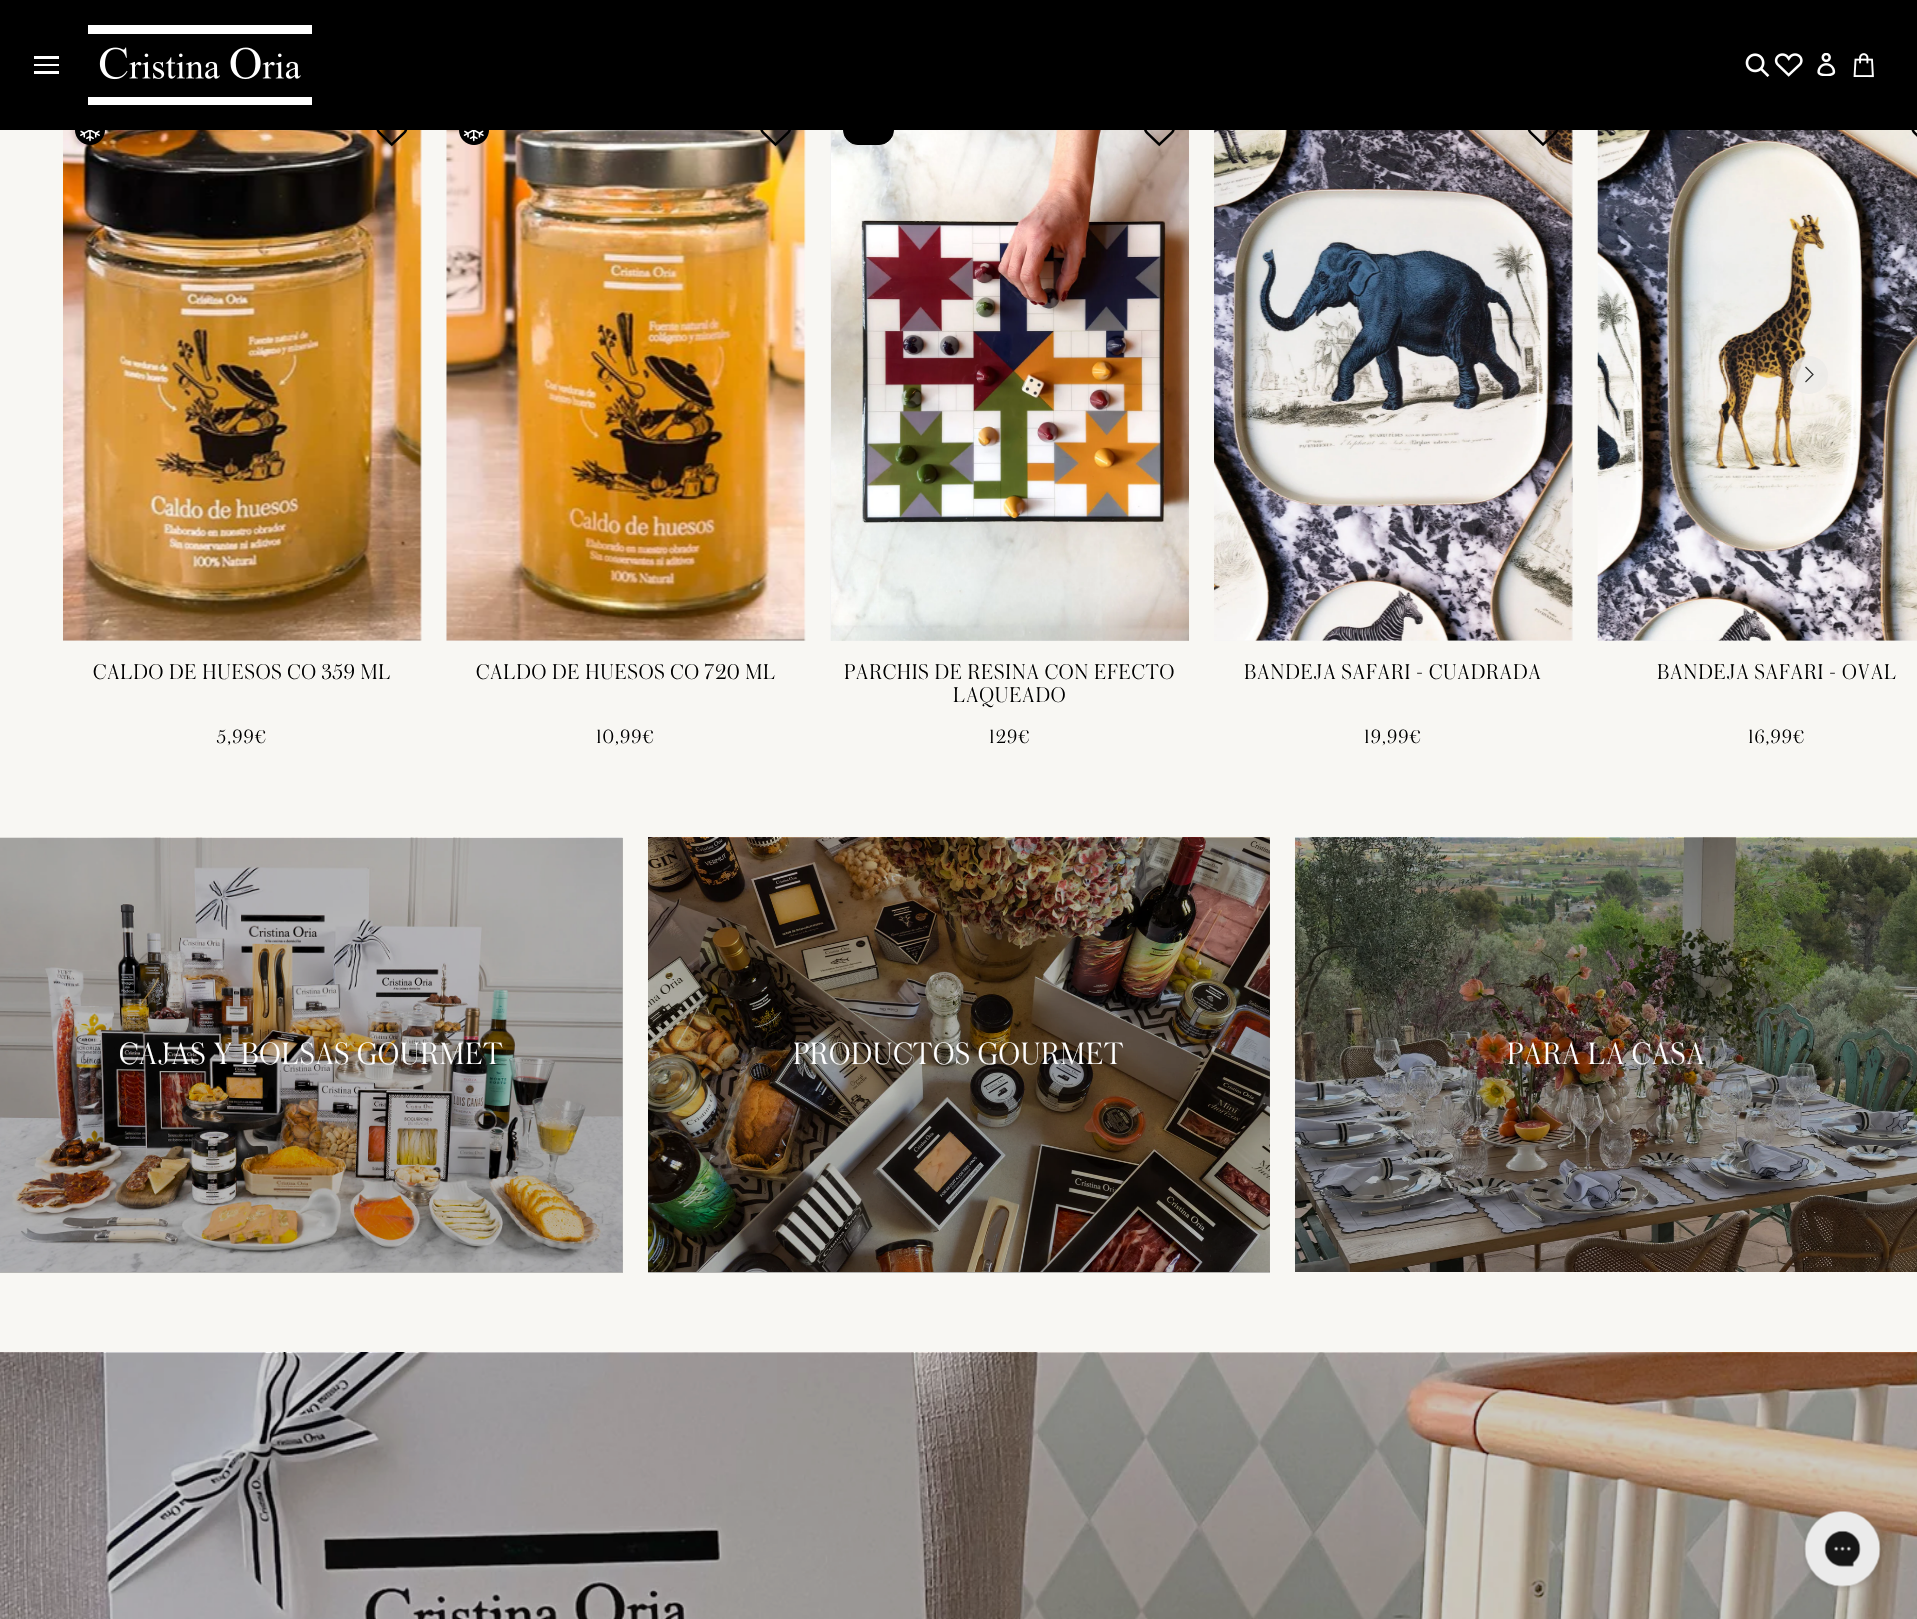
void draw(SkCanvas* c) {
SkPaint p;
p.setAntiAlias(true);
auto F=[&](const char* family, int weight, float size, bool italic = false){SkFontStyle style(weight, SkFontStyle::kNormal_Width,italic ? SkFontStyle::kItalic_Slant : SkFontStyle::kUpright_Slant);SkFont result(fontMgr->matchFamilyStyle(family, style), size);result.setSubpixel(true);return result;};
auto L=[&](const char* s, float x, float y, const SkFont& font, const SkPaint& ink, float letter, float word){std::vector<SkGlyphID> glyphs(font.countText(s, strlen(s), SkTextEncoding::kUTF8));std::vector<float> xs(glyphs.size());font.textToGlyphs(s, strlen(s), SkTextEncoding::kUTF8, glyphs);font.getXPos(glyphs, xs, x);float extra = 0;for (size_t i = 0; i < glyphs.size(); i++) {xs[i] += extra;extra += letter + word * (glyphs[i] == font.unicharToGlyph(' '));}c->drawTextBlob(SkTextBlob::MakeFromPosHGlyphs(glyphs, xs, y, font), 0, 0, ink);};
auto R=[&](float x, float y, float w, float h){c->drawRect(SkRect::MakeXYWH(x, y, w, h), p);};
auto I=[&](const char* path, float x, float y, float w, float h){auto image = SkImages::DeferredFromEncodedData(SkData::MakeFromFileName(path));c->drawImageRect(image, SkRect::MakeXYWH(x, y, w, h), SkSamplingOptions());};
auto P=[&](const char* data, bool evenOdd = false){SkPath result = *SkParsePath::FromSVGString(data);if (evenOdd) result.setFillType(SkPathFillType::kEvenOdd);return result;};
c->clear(0xfff8f7f3);
p.setColor(0xffb3b3b0);
R(648,838,622,435);
R(0,838,623,435);
p.setColor(0xfff3f3f3);
R(830,130,359,511);
I("12.png",831,130,358,511);
p.setColor(0xff000000);
c->drawRoundRect(SkRect::MakeXYWH(843.5,115.5,50,29),14.5,14.5,p);
p.setStroke(true);
p.setStrokeWidth(1);
c->drawRoundRect(SkRect::MakeXYWH(843.5,115.5,50,29),14.5,14.5,p);
p.setStroke(false);
R(0,0,1917,130);
p.setColor(0xffffffff);
R(34,56,25,3);
R(34,64,25,2);
R(34,71,25,3);
I("1.png",88,25,224,80);
I("2.png",1745,53,25,24);
I("3.png",1774,53,29,24);
I("4.png",1817,53,19,23);
I("5.png",1853,53,21,25);
p.setColor(0xfff3f3f3);
R(1598,640,319,1);
I("16.png",1597,130,320,511);
p.setColor(0xccebeae7);
c->drawCircle(1809,375,19,p);
p.setStroke(true);
p.setStrokeWidth(1.2);
p.setColor(0xff2f2f2e);
c->drawPath(P("M1805.5 367l7.5 7.5l-7.5 7.5"),p);
p.setStroke(false);
p.setColor(0xfff3f3f3);
R(63,130,358,511);
I("6.png",63,130,359,511);
I("7.png",75,130,30,15);
I("8.png",376,130,32,17);
auto f1 = F("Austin",300,22.5);
p.setColor(0xff000000);
L("CALDO DE HUESOS CO 359 ML",93,679,f1,p,.75,0);
auto f2 = F("Austin",300,20);
L("5,99€",217,743,f2,p,1.25,0);
p.setColor(0xfff3f3f3);
R(446,130,359,511);
I("9.png",446,130,360,511);
I("10.png",459,130,30,15);
I("11.png",760,130,31,17);
p.setColor(0xff000000);
L("CALDO DE HUESOS CO 720 ML",476,679,f1,p,.75,0);
L("10,99€",596,743,f2,p,1.25,0);
I("13.png",1144,130,31,17);
c->save();
c->clipRect(SkRect::MakeXYWH(830,663,359,50));
L("PARCHÍS DE RESINA CON EFECTO",844,679,f1,p,.75,0);
c->restore();
L("LAQUEADO",953,702,f1,p,.75,0);
L("129€",989,743,f2,p,1.25,0);
p.setColor(0xfff3f3f3);
R(1214,130,359,511);
I("14.png",1214,130,359,511);
I("15.png",1527,130,32,17);
p.setColor(0xff000000);
L("BANDEJA SAFARI - CUADRADA",1244,679,f1,p,.75,0);
L("19,99€",1364,743,f2,p,1.25,0);
I("17.png",1911,130,6,7);
L("BANDEJA SAFARI - OVAL",1657,679,f1,p,.75,0);
L("16,99€",1748,743,f2,p,1.25,0);
I("18.png",0,837,623,435);
auto f3 = F("Austin",300,32.5);
p.setColor(0xffffffff);
L("CAJAS Y BOLSAS GOURMET",119,1064,f3,p,.75,0);
I("19.png",648,837,622,435);
L("PRODUCTOS GOURMET",793,1064,f3,p,.75,0);
I("20.png",1295,837,622,435);
L("PARA LA CASA",1507,1064,f3,p,.75,0);
I("21.png",0,1352,1917,267);
I("22.png",1803,1511,79,80);
}
